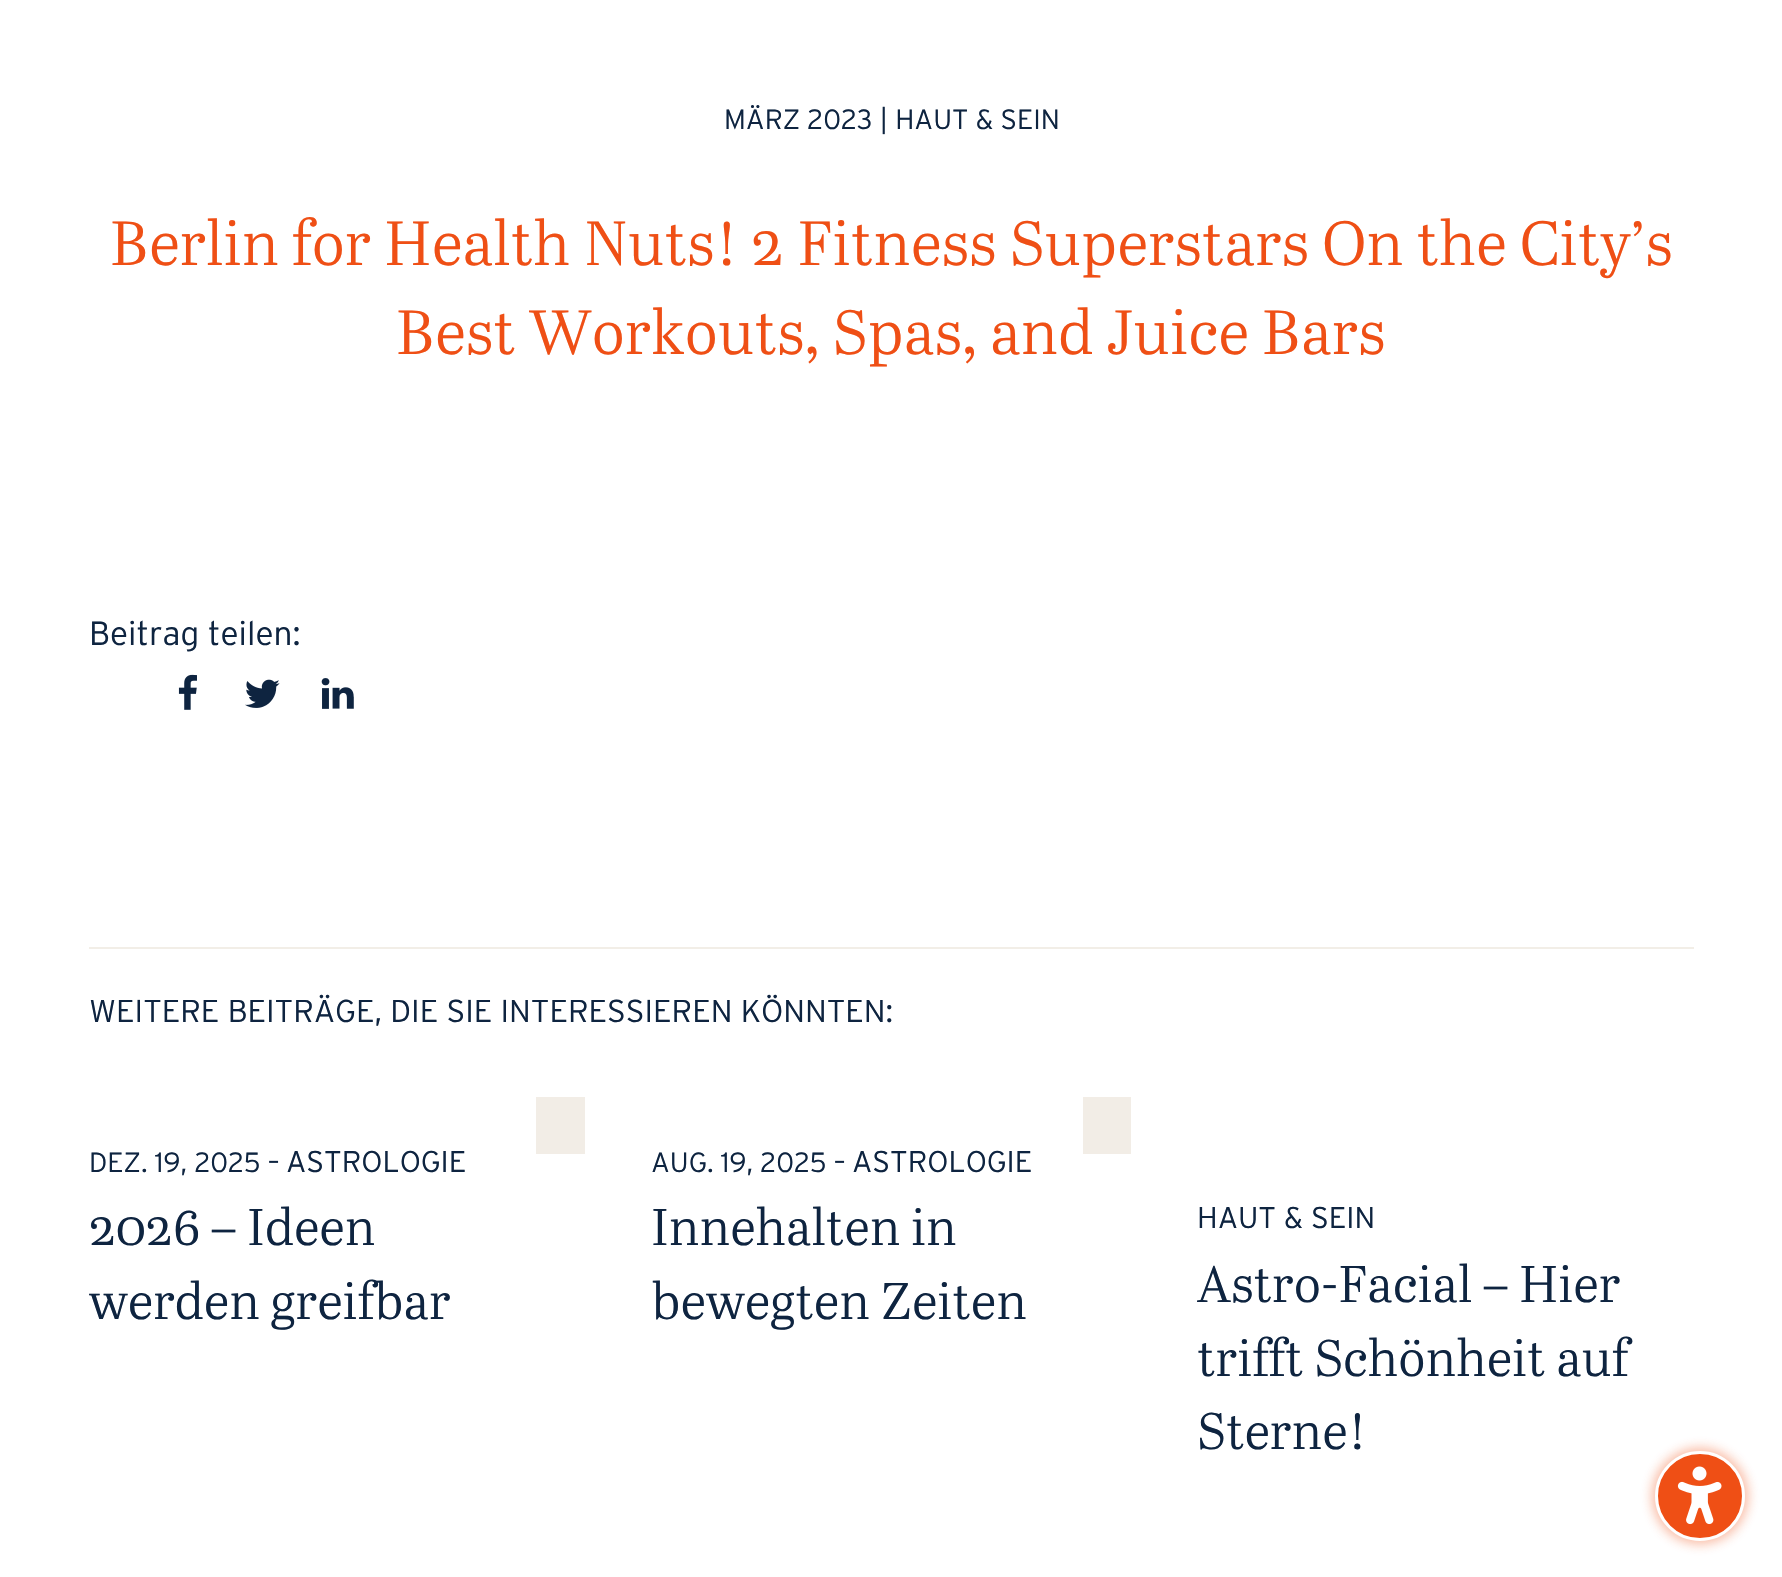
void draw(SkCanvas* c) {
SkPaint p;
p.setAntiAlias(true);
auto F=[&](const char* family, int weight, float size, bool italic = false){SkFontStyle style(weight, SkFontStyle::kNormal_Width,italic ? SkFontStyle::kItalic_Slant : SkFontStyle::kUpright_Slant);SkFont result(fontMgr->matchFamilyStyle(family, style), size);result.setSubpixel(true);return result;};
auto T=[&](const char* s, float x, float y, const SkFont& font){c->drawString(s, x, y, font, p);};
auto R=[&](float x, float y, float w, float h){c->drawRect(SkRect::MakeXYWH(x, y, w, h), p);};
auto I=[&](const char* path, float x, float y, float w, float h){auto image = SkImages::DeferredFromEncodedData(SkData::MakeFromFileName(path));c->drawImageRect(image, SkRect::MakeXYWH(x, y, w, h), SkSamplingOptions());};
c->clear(0xffffffff);
auto f1 = F("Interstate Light",300,27.75);
p.setColor(0xff0e2440);
T("MÄRZ 2023 | HAUT & SEIN",724,129,f1);
auto f2 = F("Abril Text",300,62.25);
p.setColor(0xffef4f15);
T("Berlin for Health Nuts! 2 Fitness Superstars On the City’s",110,265,f2);
T("Best Workouts, Spas, and Juice Bars",396,354,f2);
auto f3 = F("Interstate Light",300,33.5);
p.setColor(0xff0e2440);
T("Beitrag teilen:",89,645,f3);
I("1.png",178,674,19,36);
I("2.png",245,679,35,29);
I("3.png",321,678,33,31);
p.setColor(0xfff2eee7);
R(89,947,1605,2);
auto f4 = F("Interstate Light",300,31.6);
p.setColor(0xff0e2440);
T("WEITERE BEITRÄGE, DIE SIE INTERESSIEREN KÖNNTEN:",89,1022,f4);
p.setColor(0xfff2ede6);
R(536,1097,49,57);
p.setColor(0xff0e2440);
T("DEZ. 19, 2025 –",89,1172,f1);
auto f5 = F("Interstate Light",300,30);
T("ASTROLOGIE",286,1172,f5);
auto f6 = F("Abril Text",300,51.25);
T("2026 – Ideen",89,1245,f6);
T("werden greifbar",89,1319,f6);
p.setColor(0xfff2ede6);
R(1083,1097,48,57);
p.setColor(0xff0e2440);
T("AUG. 19, 2025 –",651,1172,f1);
T("ASTROLOGIE",852,1172,f5);
T("Innehalten in",651,1245,f6);
T("bewegten Zeiten",651,1319,f6);
T("HAUT & SEIN",1197,1228,f5);
T("Astro-Facial – Hier",1197,1302,f6);
T("trifft Schönheit auf",1197,1376,f6);
T("Sterne!",1197,1449,f6);
p.setColor(0x66ef4f15);
p.setMaskFilter(SkMaskFilter::MakeBlur(kNormal_SkBlurStyle, 6));
c->drawRoundRect(SkRect::MakeXYWH(1652,1448,96,96),48,48,p);
p.setMaskFilter(nullptr);
p.setColor(0xffef4f15);
c->drawCircle(1700,1496,43.5,p);
p.setStroke(true);
p.setStrokeWidth(3);
p.setColor(0xffffffff);
c->drawCircle(1700,1496,43.5,p);
I("4.png",1677,1466,45,59);
}
